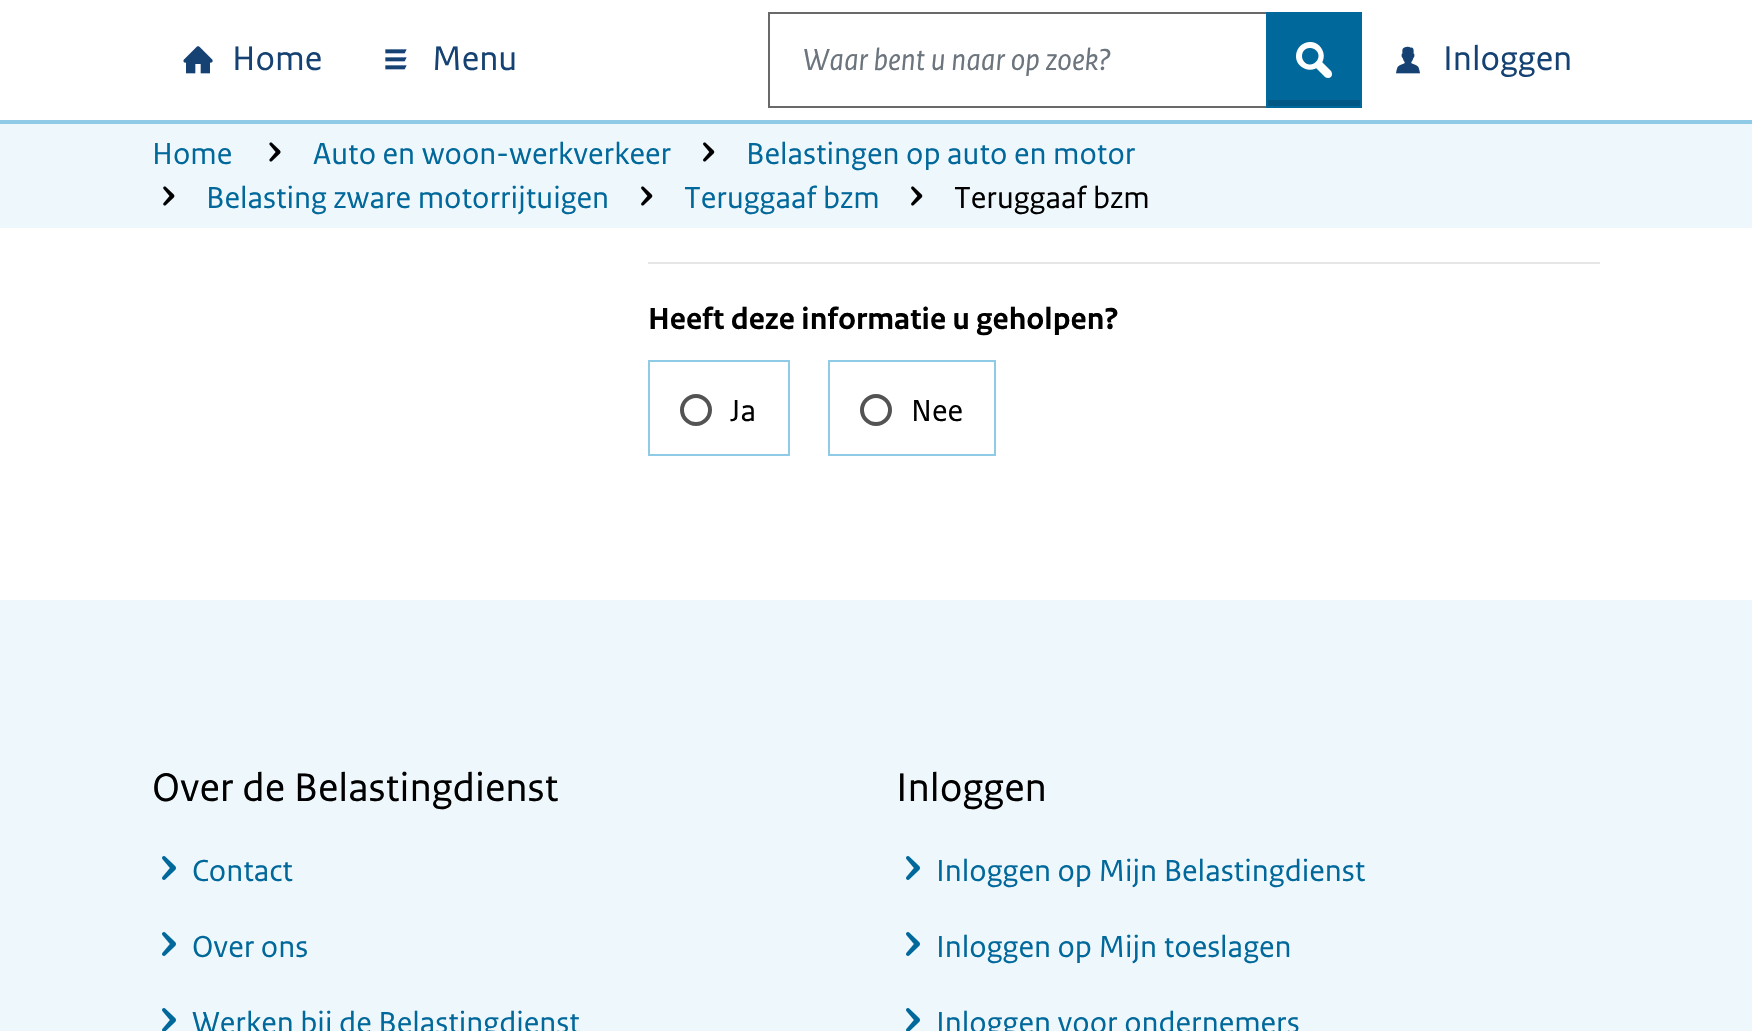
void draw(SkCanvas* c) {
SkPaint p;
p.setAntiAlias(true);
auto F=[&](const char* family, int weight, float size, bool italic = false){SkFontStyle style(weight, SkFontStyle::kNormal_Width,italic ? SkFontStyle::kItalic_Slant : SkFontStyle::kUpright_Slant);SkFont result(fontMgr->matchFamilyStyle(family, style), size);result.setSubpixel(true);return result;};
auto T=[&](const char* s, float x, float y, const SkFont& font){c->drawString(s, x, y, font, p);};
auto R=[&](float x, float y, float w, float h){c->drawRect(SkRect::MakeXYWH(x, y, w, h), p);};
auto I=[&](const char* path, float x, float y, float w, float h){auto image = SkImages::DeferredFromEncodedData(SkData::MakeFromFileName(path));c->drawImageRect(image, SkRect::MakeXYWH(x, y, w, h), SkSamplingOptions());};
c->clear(0xffffffff);
p.setColor(0xff8fcae7);
R(0,120,1752,4);
I("1.png",183,46,30,28);
auto f1 = F("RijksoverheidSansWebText",400,36);
p.setColor(0xff154273);
T("Home",232,70,f1);
I("2.png",385,49,22,21);
T("Menu",432,70,f1);
p.setStroke(true);
p.setStrokeWidth(2);
p.setColor(0xff696969);
c->drawRect(SkRect::MakeXYWH(769,13,498,94),p);
auto f2 = F("RijksoverheidSansWebText",400,32,true);
p.setStroke(false);
p.setColor(0xff6c757d);
T("Waar bent u naar op zoek?",803,70,f2);
p.setColor(0xff01689b);
R(1266,12,96,96);
p.setColor(0xff015884);
R(1268,100,92,6);
I("3.png",1296,42,36,36);
I("4.png",1396,46,24,28);
p.setColor(0xff154273);
T("Inloggen",1443,70,f1);
p.setColor(0xffeef7fb);
R(0,124,1752,104);
auto f3 = F("RijksoverheidSansWebText",400,32);
p.setColor(0xff01689b);
T("Home",152,164,f3);
I("5.png",269,142,12,20);
T("Auto en woon-werkverkeer",313,164,f3);
I("6.png",703,142,12,20);
T("Belastingen op auto en motor",746,164,f3);
I("7.png",163,186,12,20);
T("Belasting zware motorrijtuigen",206,208,f3);
I("8.png",641,186,12,20);
T("Teruggaaf bzm",684,208,f3);
I("9.png",911,186,12,20);
p.setColor(0xff000000);
T("Teruggaaf bzm",954,208,f3);
p.setColor(0xffe6e6e6);
R(648,262,952,2);
auto f4 = F("RijksoverheidSansWebText",700,32);
p.setColor(0xff000000);
T("Heeft deze informatie u geholpen?",648,329,f4);
p.setStroke(true);
p.setColor(0xff8fcae7);
c->drawRect(SkRect::MakeXYWH(649,361,140,94),p);
p.setStrokeWidth(4);
p.setColor(0xff535353);
c->drawCircle(696,410,14,p);
p.setStroke(false);
p.setColor(0xff000000);
T("Ja",730,421,f3);
p.setStroke(true);
p.setStrokeWidth(2);
p.setColor(0xff8fcae7);
c->drawRect(SkRect::MakeXYWH(829,361,166,94),p);
p.setStrokeWidth(4);
p.setColor(0xff535353);
c->drawCircle(876,410,14,p);
p.setStroke(false);
p.setColor(0xff000000);
T("Nee",911,421,f3);
p.setColor(0xffeef7fb);
R(0,600,1752,431);
auto f5 = F("RijksoverheidSansWebText",400,42);
p.setColor(0xff000000);
T("Over de Belastingdienst",152,801,f5);
I("10.png",162,856,14,24);
p.setColor(0xff01689b);
T("Contact",192,881,f3);
I("10.png",162,932,14,24);
T("Over ons",192,957,f3);
I("11.png",162,1008,14,23);
T("Werken bij de Belastingdienst",192,1033,f3);
p.setColor(0xff000000);
T("Inloggen",896,801,f5);
I("10.png",906,856,14,24);
p.setColor(0xff01689b);
T("Inloggen op Mijn Belastingdienst",936,881,f3);
I("10.png",906,932,14,24);
T("Inloggen op Mijn toeslagen",936,957,f3);
I("11.png",906,1008,14,23);
T("Inloggen voor ondernemers",936,1033,f3);
}
